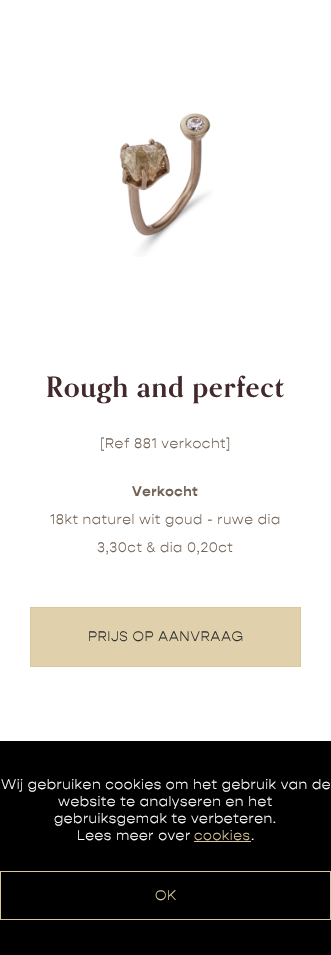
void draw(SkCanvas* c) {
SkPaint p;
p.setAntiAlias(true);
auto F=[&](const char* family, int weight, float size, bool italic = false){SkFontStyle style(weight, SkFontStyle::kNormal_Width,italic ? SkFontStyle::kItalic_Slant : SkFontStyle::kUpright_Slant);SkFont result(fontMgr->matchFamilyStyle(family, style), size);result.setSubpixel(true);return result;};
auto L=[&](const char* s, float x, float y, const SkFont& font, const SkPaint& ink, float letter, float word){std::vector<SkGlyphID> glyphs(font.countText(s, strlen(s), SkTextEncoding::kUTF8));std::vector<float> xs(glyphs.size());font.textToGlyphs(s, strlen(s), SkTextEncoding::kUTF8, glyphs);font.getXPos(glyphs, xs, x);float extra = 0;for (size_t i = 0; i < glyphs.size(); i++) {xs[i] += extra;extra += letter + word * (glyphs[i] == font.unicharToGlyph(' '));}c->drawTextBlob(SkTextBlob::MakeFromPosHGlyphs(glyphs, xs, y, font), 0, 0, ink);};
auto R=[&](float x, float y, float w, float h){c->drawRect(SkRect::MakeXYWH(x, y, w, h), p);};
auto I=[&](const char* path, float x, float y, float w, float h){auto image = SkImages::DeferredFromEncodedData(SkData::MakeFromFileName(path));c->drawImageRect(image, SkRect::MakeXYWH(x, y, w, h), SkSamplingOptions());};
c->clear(0xffffffff);
I("1.png",119,113,94,144);
auto f1 = F("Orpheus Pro",700,28);
p.setColor(0xff42292c);
L("Rough and perfect",46,397,f1,p,1,0);
auto f2 = F("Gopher",300,14);
p.setColor(0xff736357);
L("[Ref 881 verkocht]",100,448,f2,p,.5,0);
auto f3 = F("Gopher",700,14);
L("Verkocht",132,496,f3,p,.5,0);
L("18kt naturel wit goud - ruwe dia",50,524,f2,p,.5,0);
L("3,30ct & dia 0,20ct",97,552,f2,p,.5,0);
p.setColor(0xffe0d1ac);
c->drawRect(SkRect::MakeXYWH(30.5,607.5,270,59),p);
p.setStroke(true);
p.setStrokeWidth(1);
p.setColor(0xffdac89b);
c->drawRect(SkRect::MakeXYWH(30.5,607.5,270,59),p);
p.setStroke(false);
p.setColor(0xff333333);
L("PRIJS OP AANVRAAG",88,641,f2,p,.5,0);
p.setColor(0xff000000);
R(0,741,331,214);
p.setColor(0xffffffff);
L("Wij gebruiken cookies om het gebruik van de",1,789,f2,p,.5,0);
L("website te analyseren en het",58,806,f2,p,.5,0);
L("gebruiksgemak te verbeteren.",54,823,f2,p,.5,0);
L("Lees meer over",77,840,f2,p,.5,0);
p.setColor(0xffd8c698);
L("cookies",194,840,f2,p,.5,0);
R(194,841,57,1);
p.setColor(0xffffffff);
L(".",251,840,f2,p,.5,0);
p.setStroke(true);
p.setColor(0xffd8c698);
c->drawRect(SkRect::MakeXYWH(.5,871.5,330,48),p);
p.setStroke(false);
L("OK",155,900,f2,p,.5,0);
}
